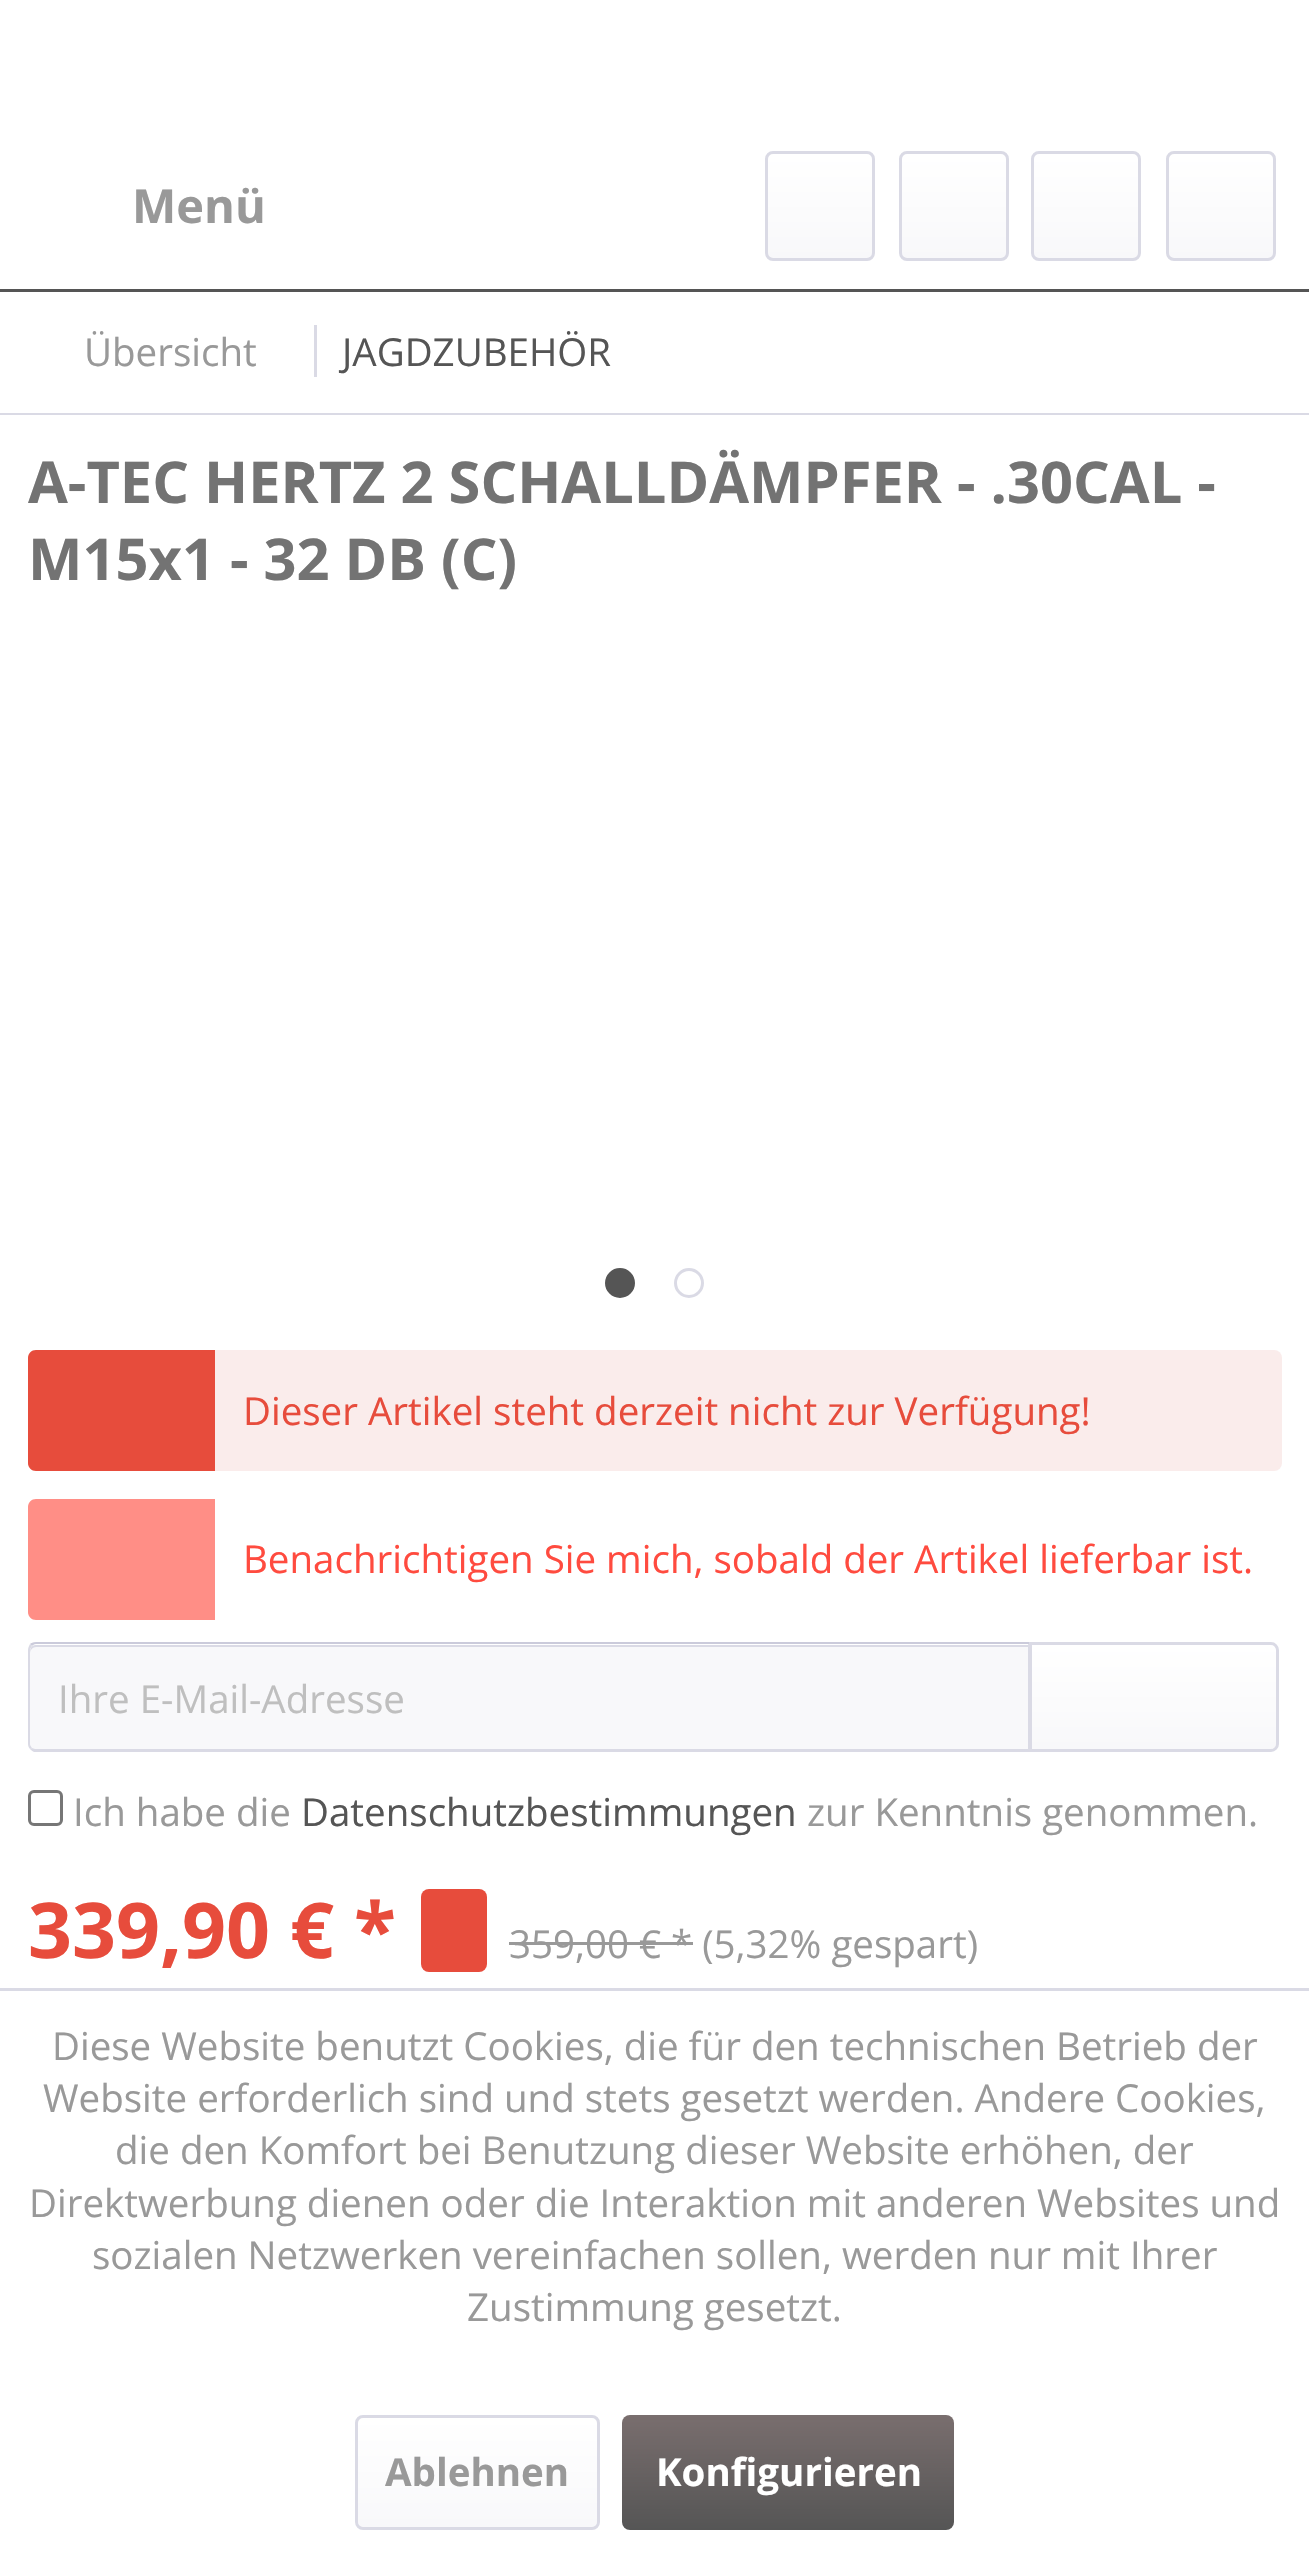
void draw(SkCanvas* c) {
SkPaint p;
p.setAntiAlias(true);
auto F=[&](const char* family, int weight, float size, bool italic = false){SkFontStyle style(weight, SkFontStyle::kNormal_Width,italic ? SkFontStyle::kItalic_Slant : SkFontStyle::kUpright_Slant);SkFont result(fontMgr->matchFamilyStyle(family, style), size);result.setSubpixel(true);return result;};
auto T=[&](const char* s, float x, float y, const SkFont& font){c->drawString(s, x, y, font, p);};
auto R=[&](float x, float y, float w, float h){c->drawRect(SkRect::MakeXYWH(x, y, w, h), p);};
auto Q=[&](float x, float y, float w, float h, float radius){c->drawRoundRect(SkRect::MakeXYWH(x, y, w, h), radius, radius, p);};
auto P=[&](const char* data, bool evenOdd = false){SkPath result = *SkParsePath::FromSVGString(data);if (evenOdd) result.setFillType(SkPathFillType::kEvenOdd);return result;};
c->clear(0xffffffff);
p.setColor(0xff555555);
R(0,289,1309,3);
auto f1 = F("Open Sans",700,47);
p.setColor(0xff999999);
T("Menü",132,223,f1);
{
const SkColor colors[] = {0xffffffff,0xfff8f8fa};
const float stops[] = {0,1};
const SkPoint ends[] = {{820,154}, {820,259}};
p.setShader(SkGradientShader::MakeLinear(ends, colors, stops, 2, SkTileMode::kClamp));
p.setAlpha(255);
}
Q(767,154,105,105,6);
p.setStroke(true);
p.setStrokeWidth(3);
p.setShader(nullptr);
p.setColor(0xffdadae5);
c->drawRoundRect(SkRect::MakeXYWH(766.5,152.5,107,107),6.5,6.5,p);
p.setStroke(false);
{
const SkColor colors[] = {0xffffffff,0xfff8f8fa};
const float stops[] = {0,1};
const SkPoint ends[] = {{954,154}, {954,259}};
p.setShader(SkGradientShader::MakeLinear(ends, colors, stops, 2, SkTileMode::kClamp));
p.setAlpha(255);
}
Q(902,154,105,105,6);
p.setStroke(true);
p.setShader(nullptr);
p.setColor(0xffdadae5);
c->drawRoundRect(SkRect::MakeXYWH(900.5,152.5,107,107),6.5,6.5,p);
p.setStroke(false);
{
const SkColor colors[] = {0xffffffff,0xfff8f8fa};
const float stops[] = {0,1};
const SkPoint ends[] = {{1086,154}, {1086,259}};
p.setShader(SkGradientShader::MakeLinear(ends, colors, stops, 2, SkTileMode::kClamp));
p.setAlpha(255);
}
Q(1034,154,105,105,6);
p.setStroke(true);
p.setShader(nullptr);
p.setColor(0xffdadae5);
c->drawRoundRect(SkRect::MakeXYWH(1032.5,152.5,107,107),6.5,6.5,p);
p.setStroke(false);
{
const SkColor colors[] = {0xffffffff,0xfff8f8fa};
const float stops[] = {0,1};
const SkPoint ends[] = {{1221,154}, {1221,259}};
p.setShader(SkGradientShader::MakeLinear(ends, colors, stops, 2, SkTileMode::kClamp));
p.setAlpha(255);
}
Q(1169,154,104,105,6);
p.setStroke(true);
p.setShader(nullptr);
p.setColor(0xffdadae5);
c->drawRoundRect(SkRect::MakeXYWH(1167.5,152.5,107,107),6.5,6.5,p);
p.setStroke(false);
R(0,413,1309,2);
auto f2 = F("Open Sans",400,38.5);
p.setColor(0xff999999);
T("Übersicht",84,366,f2);
p.setColor(0xffdadae5);
R(314,325,3,52);
p.setColor(0xff555555);
T("JAGDZUBEHÖR",342,366,f2);
auto f3 = F("Open Sans",700,57.75);
p.setColor(0xff737373);
T("A-TEC HERTZ 2 SCHALLDÄMPFER - .30CAL -",28,503,f3);
T("M15x1 - 32 DB (C)",28,580,f3);
p.setColor(0xff555555);
c->drawCircle(620,1283,13.5,p);
p.setStroke(true);
c->drawCircle(620,1283,13.5,p);
p.setColor(0xffdadae5);
c->drawCircle(689,1283,13.5,p);
p.setStroke(false);
p.setColor(0xfffaeceb);
Q(28,1350,1254,121,8);
p.setColor(0xffe74c3c);
c->drawPath(P("M36 1350h179v121h-179c-4.5 0-8-3.5-8-8v-105c0-4.5 3.5-8 8-8z"),p);
T("Dieser Artikel steht derzeit nicht zur Verfügung!",243,1425,f2);
p.setColor(0xffff8e86);
c->drawPath(P("M36 1499h179v121h-179c-4.5 0-8-3.5-8-8v-105c0-4.5 3.5-8 8-8z"),p);
p.setColor(0xffff4b3f);
T("Benachrichtigen Sie mich, sobald der Artikel lieferbar ist.",243,1573,f2);
p.setColor(0xfff8f8fa);
c->drawPath(P("M36 1645h993v104h-993c-3.5 0-6-2.5-6-6v-92c0-3.5 2.5-6 6-6z"),p);
p.setColor(0xffdadae5);
c->drawPath(P("M36 1647h992v102h1v-104h-993c-5 0-6 4-6 8c0-3 3-6 6-6z"),p);
p.setColor(0xffcbcbdb);
c->drawPath(P("M36 1642c-3 0-5 1-6 2l2 2c1-1 2-2 4-2h992v1l3-3z"),p);
p.setColor(0xffdadae5);
c->drawPath(P("M1031 1752v-110l-3 3v103z"),p);
c->drawPath(P("M34 1752c-2-1-3-2-4-3l2-1l3 1h993v-1l3 4z"),p);
c->drawPath(P("M30 1644c-1 2-2 4-2 6v94c0 2 1 4 2 5l2-1c-1-1-2-3-2-4v-95l2-3z"),p);
p.setColor(0xffbfbfbf);
T("Ihre E-Mail-Adresse",58,1713,f2);
{
const SkColor colors[] = {0xffffffff,0xfff8f8fa};
const float stops[] = {0,1};
const SkPoint ends[] = {{1154,1645}, {1154,1749}};
p.setShader(SkGradientShader::MakeLinear(ends, colors, stops, 2, SkTileMode::kClamp));
p.setAlpha(255);
}
c->drawPath(P("M1031 1645h239c3.5 0 6 2.5 6 6v92c0 3.5-2.5 6-6 6h-239z"),p);
p.setStroke(true);
p.setShader(nullptr);
p.setColor(0xffdadae5);
c->drawPath(P("M1030.5 1643.5h240.5c3.5 0 6.5 3 6.5 6.5v94c0 3.5-3 6.5-6.5 6.5h-240.5z"),p);
p.setColor(0xff767676);
c->drawRoundRect(SkRect::MakeXYWH(29.5,1791.5,32,33),4.5,4.5,p);
p.setStroke(false);
p.setColor(0xff999999);
T("Ich habe die",73,1826,f2);
p.setColor(0xff555555);
T("Datenschutzbestimmungen",301,1826,f2);
p.setColor(0xff999999);
T("zur Kenntnis genommen.",807,1826,f2);
auto f4 = F("Open Sans",700,77);
p.setColor(0xffe74c3c);
T("339,90 € *",28,1958,f4);
Q(421,1889,66,83,8);
p.setColor(0xff999999);
T("359,00 € * (5,32% gespart)",509,1958,f2);
R(509,1942,184,3);
p.setColor(0xffdadae5);
R(0,1988,1309,3);
p.setColor(0xff999999);
T("Diese Website benutzt Cookies, die für den technischen Betrieb der",52,2060,f2);
T("Website erforderlich sind und stets gesetzt werden. Andere Cookies,",43,2112,f2);
T("die den Komfort bei Benutzung dieser Website erhöhen, der",115,2164,f2);
T("Direktwerbung dienen oder die Interaktion mit anderen Websites und",29,2217,f2);
T("sozialen Netzwerken vereinfachen sollen, werden nur mit Ihrer",92,2269,f2);
T("Zustimmung gesetzt.",467,2321,f2);
{
const SkColor colors[] = {0xffffffff,0xfff8f8fa};
const float stops[] = {0,1};
const SkPoint ends[] = {{477,2417}, {477,2527}};
p.setShader(SkGradientShader::MakeLinear(ends, colors, stops, 2, SkTileMode::kClamp));
p.setAlpha(255);
}
Q(358,2417,239,110,6);
p.setStroke(true);
p.setShader(nullptr);
p.setColor(0xffdadae5);
c->drawRoundRect(SkRect::MakeXYWH(356.5,2416.5,242,112),6.5,6.5,p);
auto f5 = F("Open Sans",700,38.5);
p.setStroke(false);
p.setColor(0xff999999);
T("Ablehnen",385,2486,f5);
{
const SkColor colors[] = {0xff796e6e,0xff555555};
const float stops[] = {0,1};
const SkPoint ends[] = {{788,2415}, {788,2530}};
p.setShader(SkGradientShader::MakeLinear(ends, colors, stops, 2, SkTileMode::kClamp));
p.setAlpha(255);
}
Q(622,2415,332,115,8);
p.setShader(nullptr);
p.setColor(0xffffffff);
T("Konfigurieren",656,2486,f5);
}
